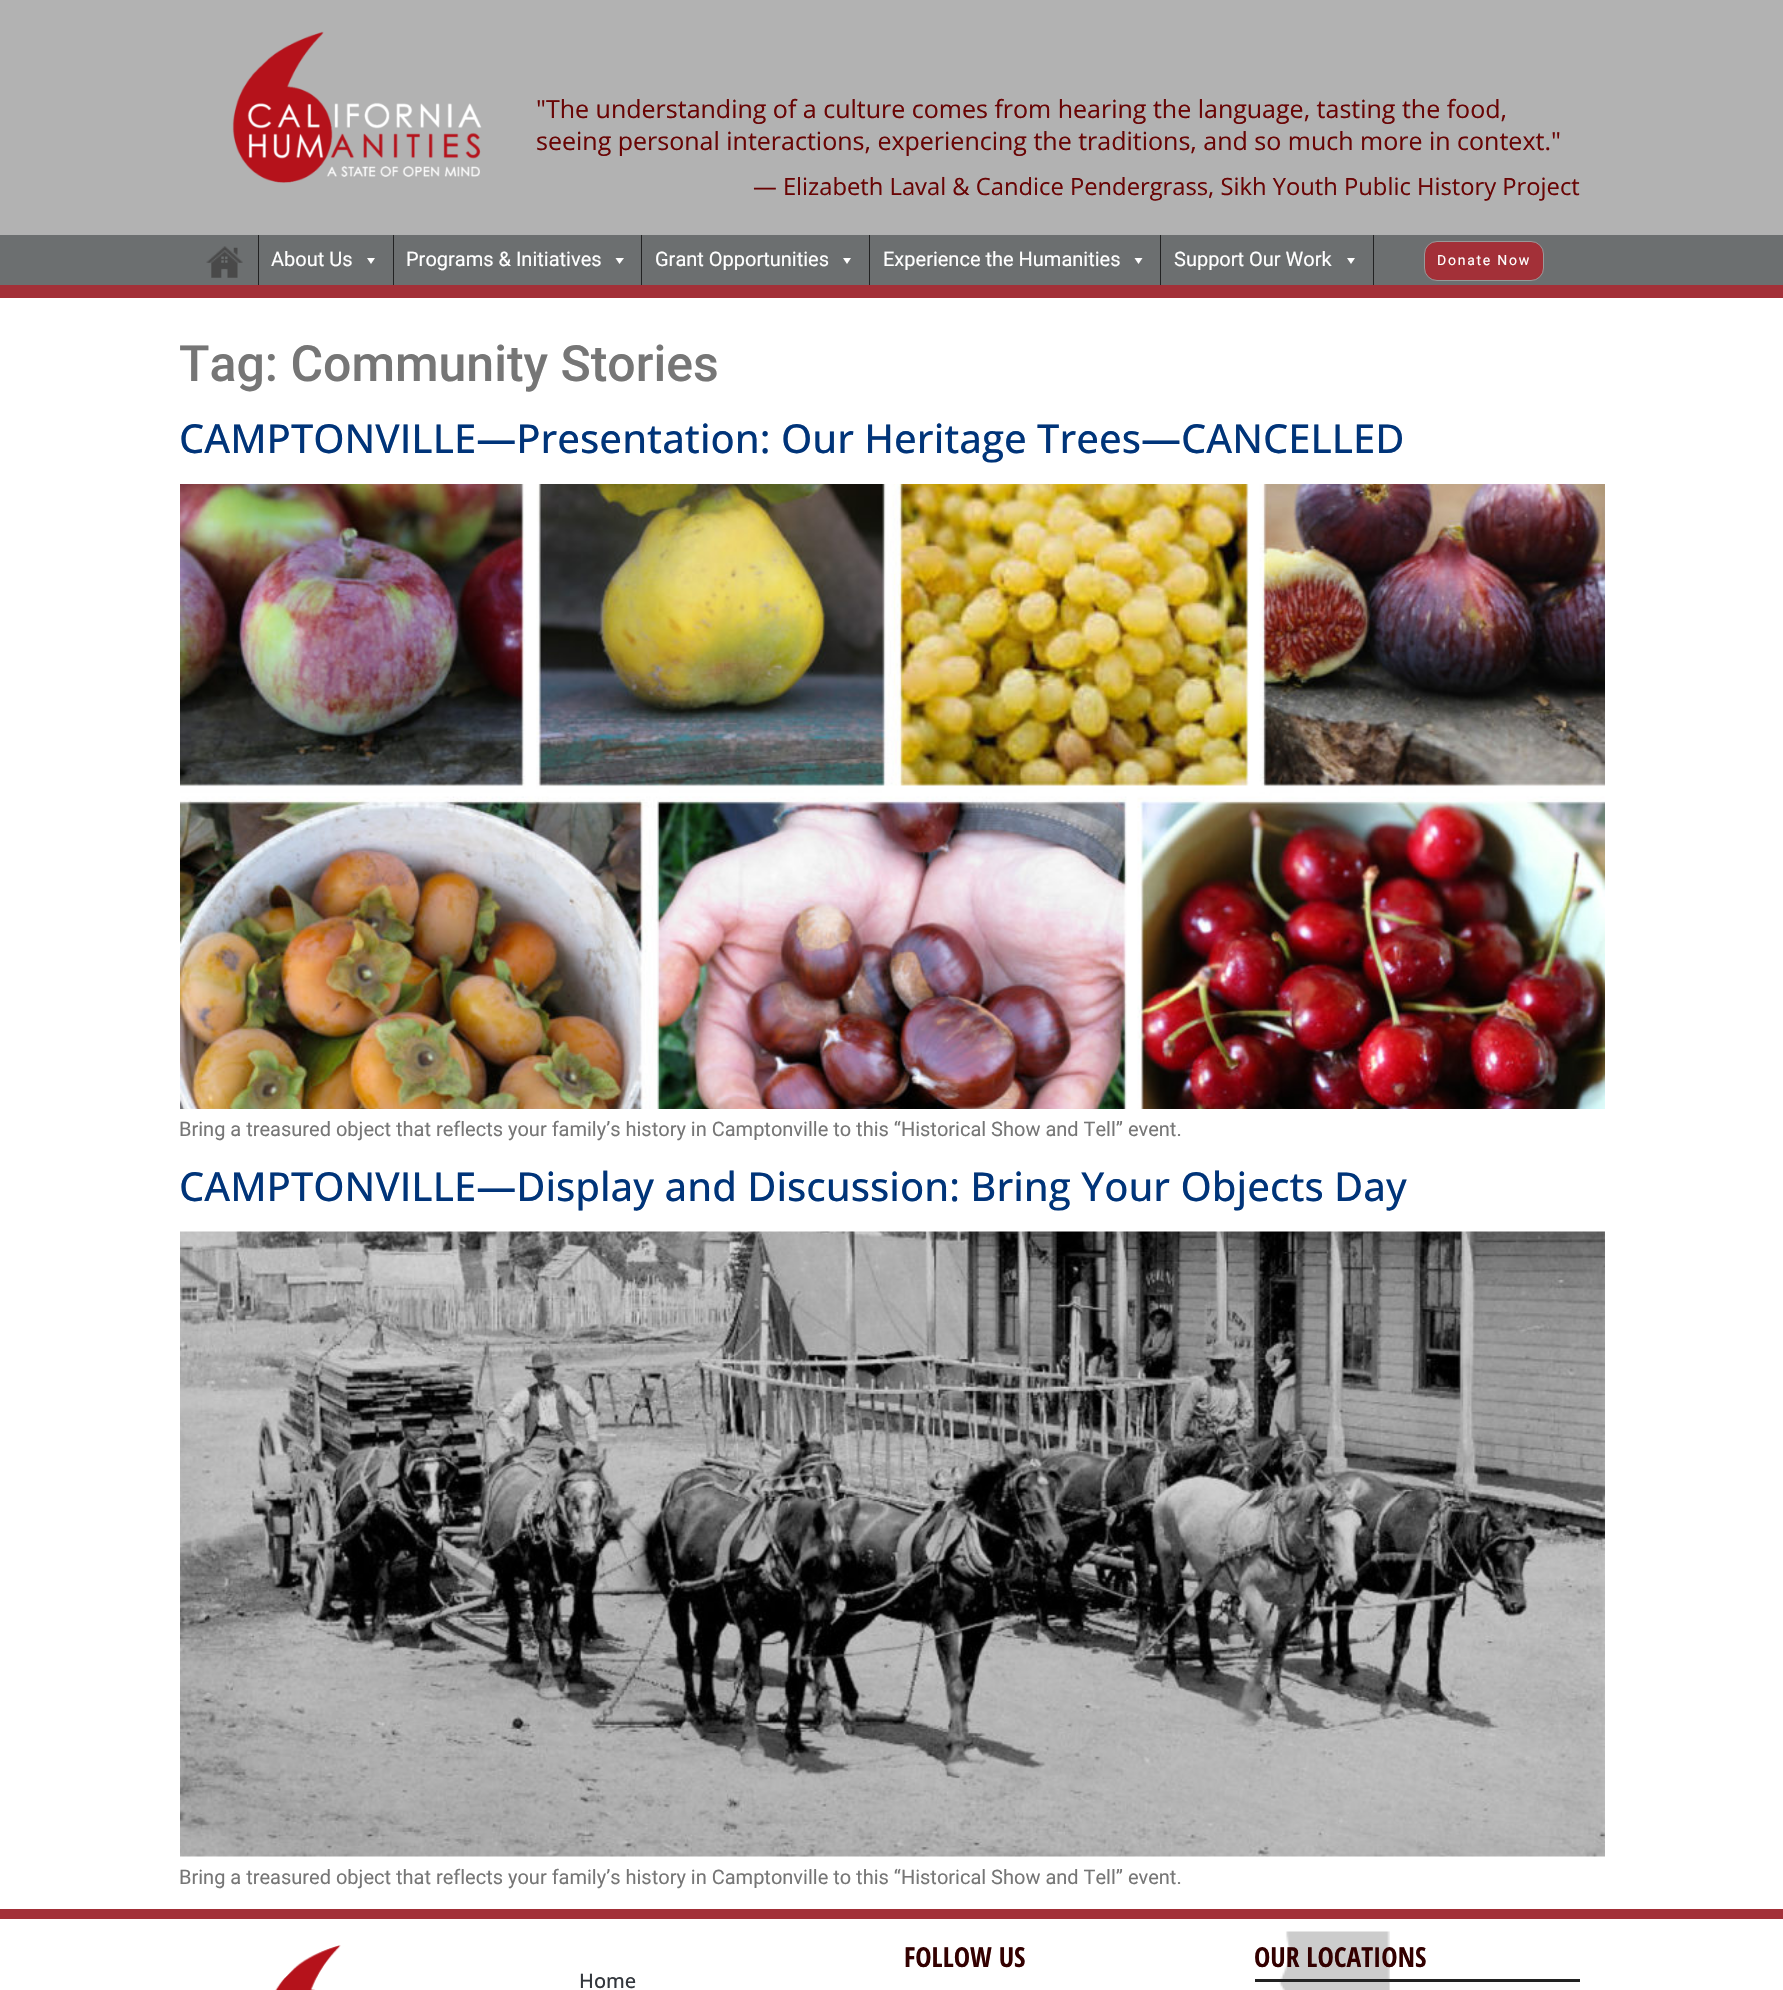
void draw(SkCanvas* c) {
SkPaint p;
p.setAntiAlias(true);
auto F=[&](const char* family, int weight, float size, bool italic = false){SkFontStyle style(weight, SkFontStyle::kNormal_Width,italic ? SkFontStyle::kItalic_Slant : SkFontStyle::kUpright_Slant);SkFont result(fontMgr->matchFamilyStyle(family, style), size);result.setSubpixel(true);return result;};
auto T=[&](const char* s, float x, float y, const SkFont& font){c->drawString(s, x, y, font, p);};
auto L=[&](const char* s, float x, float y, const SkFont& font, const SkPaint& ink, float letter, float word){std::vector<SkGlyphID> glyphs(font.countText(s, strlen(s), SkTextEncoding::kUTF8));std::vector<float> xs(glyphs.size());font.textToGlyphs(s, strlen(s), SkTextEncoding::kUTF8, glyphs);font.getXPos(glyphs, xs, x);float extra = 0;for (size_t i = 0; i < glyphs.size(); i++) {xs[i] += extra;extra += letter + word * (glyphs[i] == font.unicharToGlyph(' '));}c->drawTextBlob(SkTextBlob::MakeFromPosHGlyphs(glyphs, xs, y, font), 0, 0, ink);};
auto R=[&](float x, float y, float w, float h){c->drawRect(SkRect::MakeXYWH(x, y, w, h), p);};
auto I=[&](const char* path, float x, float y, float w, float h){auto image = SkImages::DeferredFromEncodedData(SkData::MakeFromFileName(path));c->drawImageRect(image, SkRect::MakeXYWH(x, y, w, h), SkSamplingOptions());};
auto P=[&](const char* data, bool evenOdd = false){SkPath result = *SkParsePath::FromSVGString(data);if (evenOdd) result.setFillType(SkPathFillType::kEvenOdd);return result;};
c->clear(0xffffffff);
p.setColor(0xffb2b2b2);
R(0,0,1783,235);
I("1.png",232,31,250,152);
auto f1 = F("Open Sans",400,25);
p.setColor(0xff690404);
T("\"The understanding of a culture comes from hearing the language, tasting the food,",536,118,f1);
T("seeing personal interactions, experiencing the traditions, and so much more in context.\"",536,150,f1);
auto f2 = F("Open Sans",400,23.75);
T("— Elizabeth Laval & Candice Pendergrass, Sikh Youth Public History Project",753,195,f2);
p.setColor(0xff6c6f70);
R(0,235,1783,50);
p.setColor(0xffa33038);
R(0,285,1783,13);
p.setColor(0xff222222);
R(258,235,1,50);
I("2.png",206,246,37,32);
R(393,235,1,50);
auto f3 = F("Roboto",400,20);
p.setColor(0xffffffff);
T("About Us",271,266,f3);
c->drawPath(P("M375 258l-4 6l-4-6z"),p);
p.setColor(0xff222222);
R(641,235,1,50);
p.setColor(0xffffffff);
T("Programs & Initiatives",406,266,f3);
c->drawPath(P("M624 258l-4.5 6l-4-6z"),p);
p.setColor(0xff222222);
R(869,235,1,50);
p.setColor(0xffffffff);
T("Grant Opportunities",655,266,f3);
c->drawPath(P("M851 258l-4 6l-4-6z"),p);
p.setColor(0xff222222);
R(1160,235,1,50);
p.setColor(0xffffffff);
T("Experience the Humanities",883,266,f3);
c->drawPath(P("M1142.5 258l-4 6l-4-6z"),p);
p.setColor(0xff222222);
R(1373,235,1,50);
p.setColor(0xffffffff);
T("Support Our Work",1174,266,f3);
c->drawPath(P("M1355 258l-4 6l-4-6z"),p);
p.setColor(0xffa33038);
c->drawRoundRect(SkRect::MakeXYWH(1424.5,241.5,119,39),12.5,12.5,p);
p.setStroke(true);
p.setStrokeWidth(1);
p.setColor(0xff999999);
c->drawRoundRect(SkRect::MakeXYWH(1424.5,241.5,119,39),12.5,12.5,p);
auto f4 = F("Roboto",400,14);
p.setStroke(false);
p.setColor(0xffffffff);
L("Donate Now",1437,265,f4,p,1.75,0);
auto f5 = F("Roboto",500,50);
p.setColor(0xff767676);
T("Tag: Community Stories",179,381,f5);
auto f6 = F("Open Sans",500,40);
p.setColor(0xff003479);
T("CAMPTONVILLE—Presentation: Our Heritage Trees—CANCELLED",179,453,f6);
I("3.png",180,484,1425,625);
p.setColor(0xff767676);
T("Bring a treasured object that reflects your family’s history in Camptonville to this “Historical Show and Tell” event.",179,1136,f3);
p.setColor(0xff003479);
T("CAMPTONVILLE—Display and Discussion: Bring Your Objects Day",179,1201,f6);
I("4.png",180,1231,1425,626);
p.setColor(0xff767676);
T("Bring a treasured object that reflects your family’s history in Camptonville to this “Historical Show and Tell” event.",179,1884,f3);
p.setColor(0xffa33038);
R(0,1909,1783,10);
I("5.png",275,1945,66,45);
auto f7 = F("Open Sans Condensed",700,27.5);
p.setColor(0xff330000);
T("FOLLOW US",904,1967,f7);
I("6.png",1279,1931,111,59);
T("OUR LOCATIONS",1254,1967,f7);
p.setColor(0xff222222);
R(1255,1979,325,3);
auto f8 = F("Open Sans",500,20);
p.setColor(0xff33373d);
T("Home",579,1988,f8);
}
